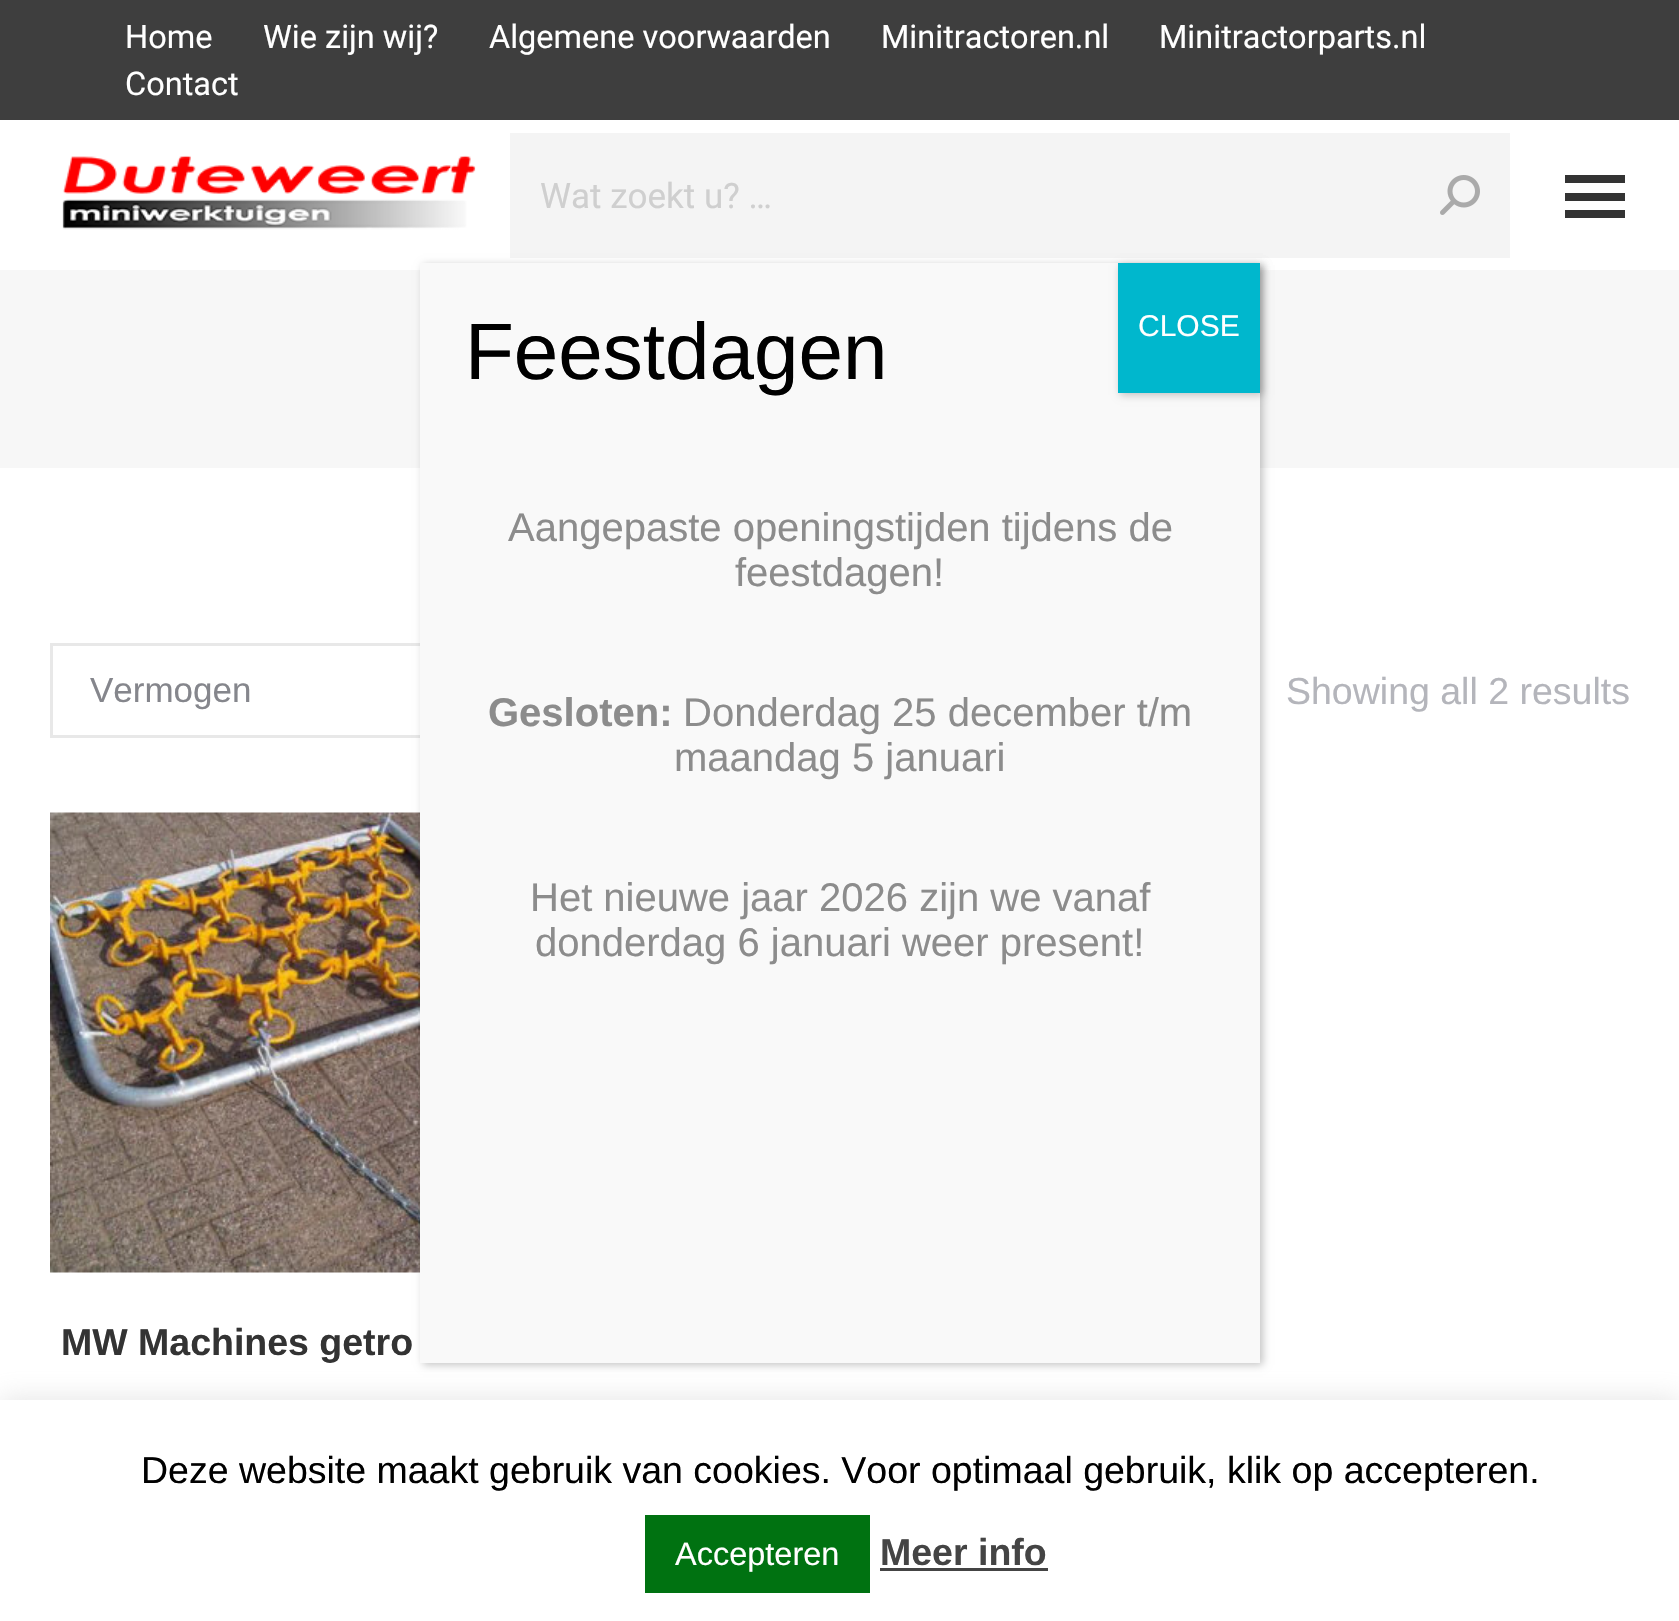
void draw(SkCanvas* c) {
SkPaint p;
p.setAntiAlias(true);
auto F=[&](const char* family, int weight, float size, bool italic = false){SkFontStyle style(weight, SkFontStyle::kNormal_Width,italic ? SkFontStyle::kItalic_Slant : SkFontStyle::kUpright_Slant);SkFont result(fontMgr->matchFamilyStyle(family, style), size);result.setSubpixel(true);return result;};
auto T=[&](const char* s, float x, float y, const SkFont& font){c->drawString(s, x, y, font, p);};
auto R=[&](float x, float y, float w, float h){c->drawRect(SkRect::MakeXYWH(x, y, w, h), p);};
auto I=[&](const char* path, float x, float y, float w, float h){auto image = SkImages::DeferredFromEncodedData(SkData::MakeFromFileName(path));c->drawImageRect(image, SkRect::MakeXYWH(x, y, w, h), SkSamplingOptions());};
c->clear(0xffffffff);
p.setColor(0xff3e3e3e);
R(0,0,1679,120);
auto f1 = F("Roboto",400,32.5);
p.setColor(0xffffffff);
T("Home",125,48,f1);
T("Wie zijn wij?",263,48,f1);
T("Algemene voorwaarden",489,48,f1);
T("Minitractoren.nl",881,48,f1);
T("Minitractorparts.nl",1159,48,f1);
T("Contact",125,95,f1);
I("1.png",62,155,414,75);
p.setColor(0xfff4f4f4);
R(510,133,1000,125);
auto f2 = F("Roboto",400,35);
p.setColor(0xffcfcfcf);
T("Wat zoekt u? …",540,208,f2);
I("2.png",1440,175,40,40);
p.setColor(0xff333333);
R(1565,175,60,8);
R(1565,193,60,8);
R(1565,210,60,8);
p.setColor(0xfff7f7f7);
R(0,270,1679,198);
p.setStroke(true);
p.setStrokeWidth(3);
p.setColor(0xffe8e8e8);
c->drawRect(SkRect::MakeXYWH(51.5,644.5,607,92),p);
auto f3 = F("Liberation Sans",400,35);
p.setStroke(false);
p.setColor(0xff85868c);
T("Vermogen",90,702,f3);
auto f4 = F("Liberation Sans",400,37.5);
p.setColor(0xffb4b5bb);
T("Showing all 2 results",1286,704,f4);
I("3.png",50,812,370,461);
auto f5 = F("Liberation Sans",700,37.5);
p.setColor(0xff333333);
T("MW Machines getro",61,1355,f5);
p.setColor(0x3b020202);
p.setMaskFilter(SkMaskFilter::MakeBlur(kNormal_SkBlurStyle, 4));
c->drawRect(SkRect::MakeXYWH(423,265,840,1100),p);
p.setMaskFilter(nullptr);
p.setColor(0x4dacabab);
p.setMaskFilter(SkMaskFilter::MakeBlur(kNormal_SkBlurStyle, 12.5));
c->drawRect(SkRect::MakeXYWH(0,1398,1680,222),p);
p.setMaskFilter(nullptr);
p.setColor(0xfff9f9f9);
R(420,263,840,1100);
auto f6 = F("Liberation Sans",400,80);
p.setColor(0xff000000);
T("Feestdagen",465,379,f6);
p.setColor(0x3b020202);
p.setMaskFilter(SkMaskFilter::MakeBlur(kNormal_SkBlurStyle, 4));
c->drawRect(SkRect::MakeXYWH(1120,265,143,130),p);
p.setMaskFilter(nullptr);
p.setColor(0xff00b7cd);
R(1118,263,142,130);
auto f7 = F("Liberation Sans",400,30);
p.setColor(0xffffffff);
T("CLOSE",1138,336,f7);
auto f8 = F("Liberation Sans",400,40);
p.setColor(0xff8c8c8c);
T("Aangepaste openingstijden tijdens de",508,541,f8);
T("feestdagen!",735,586,f8);
auto f9 = F("Liberation Sans",700,40);
T("Gesloten:",488,726,f9);
T("Donderdag 25 december t/m",683,726,f8);
T("maandag 5 januari",674,771,f8);
T("Het nieuwe jaar 2026 zijn we vanaf",530,911,f8);
T("donderdag 6 januari weer present!",535,956,f8);
p.setColor(0xffffffff);
R(0,1400,1679,221);
p.setColor(0xff000000);
T("Deze website maakt gebruik van cookies. Voor optimaal gebruik, klik op accepteren.",141,1483,f4);
p.setColor(0xff007211);
R(645,1515,225,78);
auto f10 = F("Liberation Sans",400,32.5);
p.setColor(0xffffffff);
T("Accepteren",675,1565,f10);
p.setColor(0xff444444);
T("Meer info",880,1565,f5);
R(880,1568,168,3);
}
